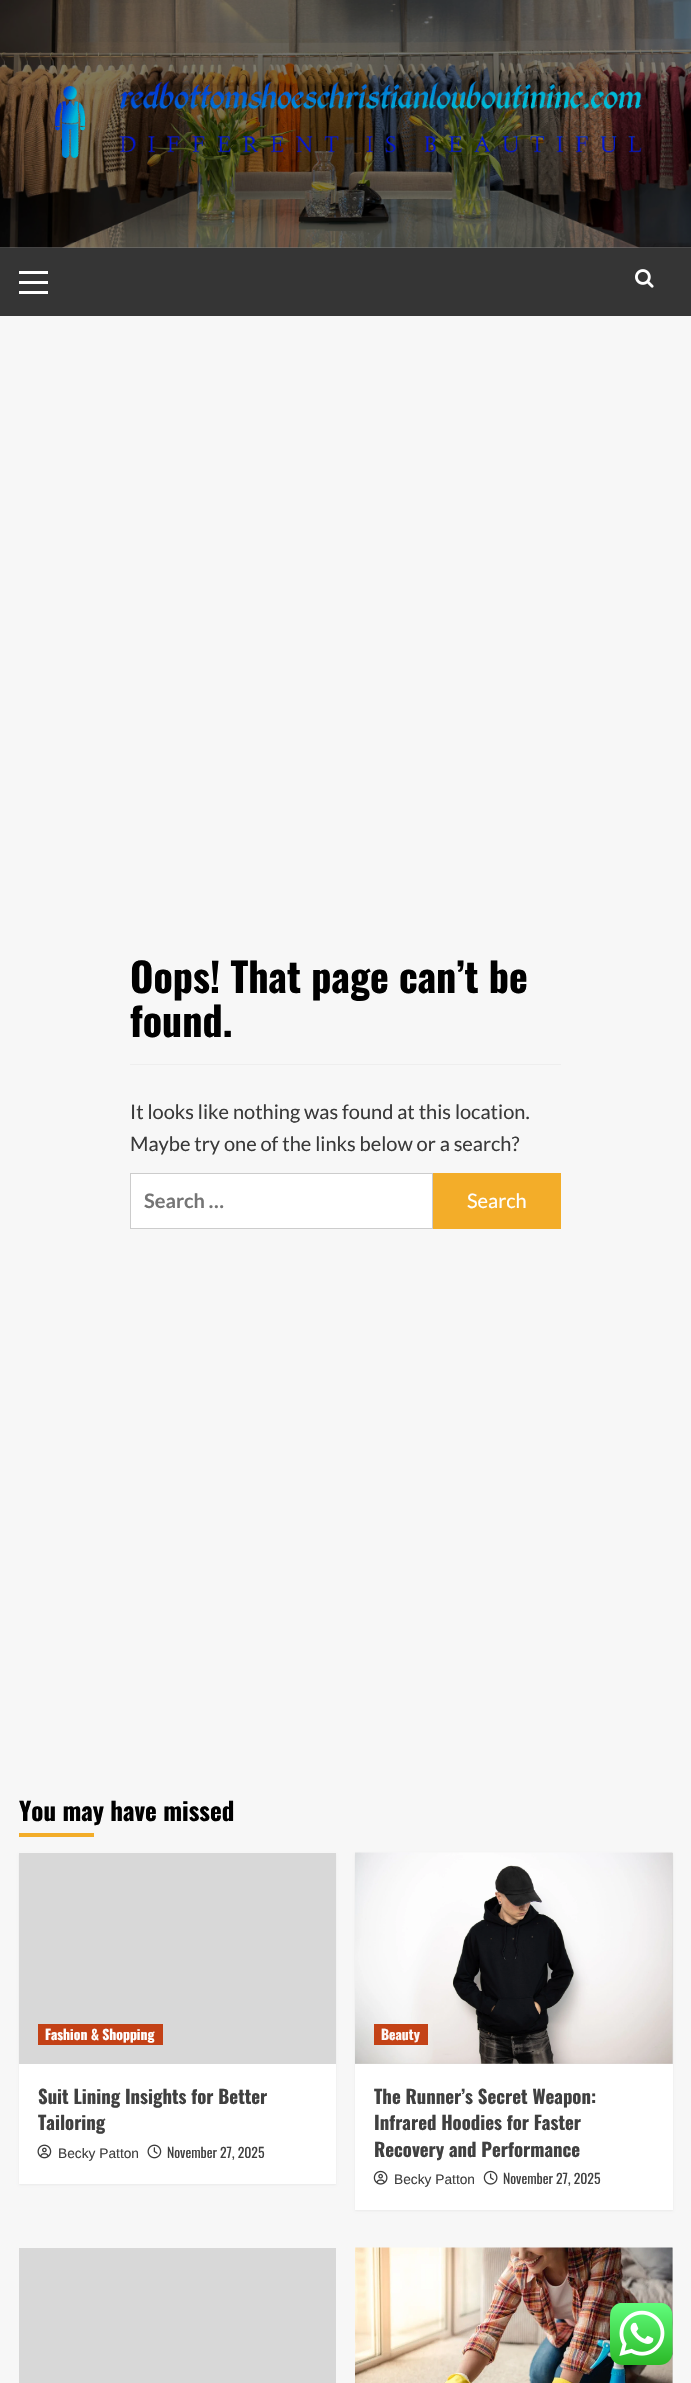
void draw(SkCanvas* c) {
SkPaint p;
p.setAntiAlias(true);
auto F=[&](const char* family, int weight, float size, bool italic = false){SkFontStyle style(weight, SkFontStyle::kNormal_Width,italic ? SkFontStyle::kItalic_Slant : SkFontStyle::kUpright_Slant);SkFont result(fontMgr->matchFamilyStyle(family, style), size);result.setSubpixel(true);return result;};
auto T=[&](const char* s, float x, float y, const SkFont& font){c->drawString(s, x, y, font, p);};
auto R=[&](float x, float y, float w, float h){c->drawRect(SkRect::MakeXYWH(x, y, w, h), p);};
auto I=[&](const char* path, float x, float y, float w, float h){auto image = SkImages::DeferredFromEncodedData(SkData::MakeFromFileName(path));c->drawImageRect(image, SkRect::MakeXYWH(x, y, w, h), SkSamplingOptions());};
c->clear(0xfff7f7f7);
p.setColor(0xff7c7c7c);
R(0,247,691,1);
I("1.png",0,0,691,248);
I("2.png",54,81,588,77);
p.setColor(0xff353535);
R(0,248,691,68);
p.setColor(0xffffffff);
R(19,281,29,3);
R(19,271,29,3);
R(19,291,29,3);
I("3.png",635,269,19,19);
p.setColor(0xffeeeeee);
R(130,1064,431,1);
auto f1 = F("Oswald",700,40);
p.setColor(0xff000000);
T("Oops! That page can’t be",130,993,f1);
T("found.",130,1037,f1);
auto f2 = F("Lato",400,20);
p.setColor(0xff3a3a3a);
T("It looks like nothing was found at this location.",130,1119,f2);
T("Maybe try one of the links below or a search?",130,1151,f2);
p.setColor(0xffffffff);
c->drawRect(SkRect::MakeXYWH(130.5,1173.5,302,55),p);
p.setStroke(true);
p.setStrokeWidth(1);
p.setColor(0xffcccccc);
c->drawRect(SkRect::MakeXYWH(130.5,1173.5,302,55),p);
auto f3 = F("Lato",700,20);
p.setStroke(false);
p.setColor(0xff757575);
T("Search …",144,1208,f3);
p.setColor(0xfff3ad29);
R(433,1173,128,56);
p.setColor(0xffffffff);
T("Search",467,1208,f2);
auto f4 = F("Oswald",700,25);
p.setColor(0xff000000);
T("You may have missed",19,1821,f4);
p.setColor(0xfff3ad29);
R(19,1833,75,4);
p.setColor(0x0d000000);
p.setMaskFilter(SkMaskFilter::MakeBlur(kNormal_SkBlurStyle, 1));
c->drawRect(SkRect::MakeXYWH(19,1854,317,331),p);
p.setMaskFilter(nullptr);
p.setColor(0xffffffff);
R(19,2064,317,120);
p.setColor(0xffd8d8d8);
R(19,1853,317,211);
p.setColor(0xffc34116);
R(38,2024,125,21);
auto f5 = F("Oswald",700,13.75);
p.setColor(0xffffffff);
T("Fashion & Shopping",45,2040,f5);
auto f6 = F("Oswald",700,18.75);
p.setColor(0xff404040);
T("Suit Lining Insights for Better",38,2104,f6);
T("Tailoring",38,2130,f6);
I("4.png",37,2144,15,15);
auto f7 = F("Liberation Sans",400,13.75);
T("Becky Patton",58,2158,f7);
I("5.png",147,2144,15,15);
auto f8 = F("Oswald",400,13.75);
T("November 27, 2025",167,2158,f8);
p.setColor(0x0d000000);
p.setMaskFilter(SkMaskFilter::MakeBlur(kNormal_SkBlurStyle, 1));
c->drawRect(SkRect::MakeXYWH(355,1854,318,357),p);
p.setMaskFilter(nullptr);
p.setColor(0xffffffff);
R(355,2064,318,146);
p.setColor(0xffd8d8d8);
R(355,1853,318,211);
I("6.png",355,1852,318,212);
p.setColor(0xf5c23b0e);
R(374,2024,54,21);
p.setColor(0xfffdf7f6);
T("Beauty",381,2040,f5);
p.setColor(0xff404040);
T("The Runner’s Secret Weapon:",374,2104,f6);
T("Infrared Hoodies for Faster",374,2130,f6);
T("Recovery and Performance",374,2157,f6);
I("7.png",373,2170,15,15);
T("Becky Patton",394,2184,f7);
I("8.png",483,2170,15,15);
T("November 27, 2025",503,2184,f8);
p.setColor(0xffd8d8d8);
R(19,2248,317,135);
R(672,2248,1,135);
I("9.png",355,2247,318,136);
I("10.png",610,2303,63,62);
}
